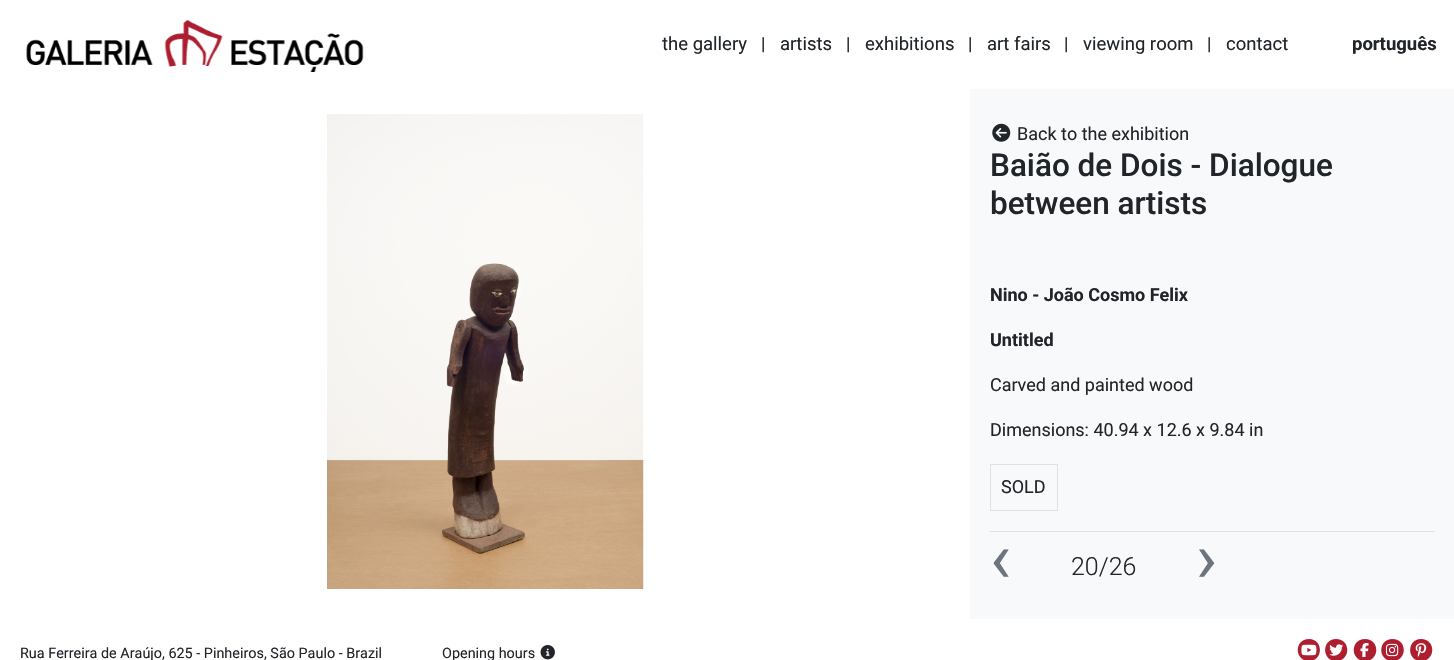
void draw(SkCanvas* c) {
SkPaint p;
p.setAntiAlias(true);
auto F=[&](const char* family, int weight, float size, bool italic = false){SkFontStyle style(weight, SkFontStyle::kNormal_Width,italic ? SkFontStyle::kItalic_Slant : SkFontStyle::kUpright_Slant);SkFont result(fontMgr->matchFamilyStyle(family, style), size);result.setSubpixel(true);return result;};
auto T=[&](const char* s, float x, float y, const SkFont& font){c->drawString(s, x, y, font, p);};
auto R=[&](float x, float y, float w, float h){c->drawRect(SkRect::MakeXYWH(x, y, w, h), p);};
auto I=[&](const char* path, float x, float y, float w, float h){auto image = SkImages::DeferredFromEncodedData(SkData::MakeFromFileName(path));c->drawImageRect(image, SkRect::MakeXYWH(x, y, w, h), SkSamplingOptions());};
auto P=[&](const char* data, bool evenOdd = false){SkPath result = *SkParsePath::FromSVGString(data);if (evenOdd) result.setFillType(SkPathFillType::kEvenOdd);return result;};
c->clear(0xfff8f9fa);
p.setColor(0xffffffff);
R(0,0,1454,89);
I("1.png",26,20,338,52);
auto f1 = F("Roboto",400,18.5);
p.setColor(0xff212529);
T("the gallery",662,50,f1);
auto f2 = F("Roboto",400,18);
T("|",761,50,f2);
T("artists",780,50,f1);
T("|",846,50,f2);
T("exhibitions",865,50,f1);
T("|",968,50,f2);
T("art fairs",987,50,f1);
T("|",1064,50,f2);
T("viewing room",1083,50,f1);
T("|",1207,50,f2);
T("contact",1226,50,f1);
auto f3 = F("Roboto",700,18.5);
T("português",1352,50,f3);
p.setColor(0xffffffff);
R(0,89,970,530);
I("2.png",327,114,317,475);
I("3.png",992,123,19,19);
p.setColor(0xff212529);
T("Back to the exhibition",1017,140,f2);
auto f4 = F("Roboto",500,31.5);
T("Baião de Dois - Dialogue",990,176,f4);
T("between artists",990,214,f4);
auto f5 = F("Roboto",700,18);
T("Nino - João Cosmo Felix",990,301,f5);
T("Untitled",990,346,f5);
T("Carved and painted wood",990,391,f2);
T("Dimensions: 40.94 x 12.6 x 9.84 in",990,436,f2);
p.setStroke(true);
p.setStrokeWidth(1);
p.setColor(0xffdee2e6);
c->drawRect(SkRect::MakeXYWH(990.5,464.5,67,46),p);
p.setStroke(false);
p.setColor(0xff212529);
T("SOLD",1001,493,f2);
p.setColor(0xffdee2e6);
R(990,531,445,1);
auto f6 = F("Roboto",400,70);
p.setColor(0xff6c757d);
T("‹",990,582,f6);
auto f7 = F("Roboto",300,25);
p.setColor(0xff212529);
T("20/26",1071,575,f7);
p.setColor(0xff6c757d);
T("›",1196,582,f6);
p.setColor(0xffffffff);
R(0,619,1454,41);
auto f8 = F("Roboto",400,14.4);
p.setColor(0xff212529);
T("Rua Ferreira de Araújo, 625 - Pinheiros, São Paulo - Brazil",20,658,f8);
T("Opening hours",442,658,f8);
I("4.png",540,645,15,15);
p.setColor(0xffae1e2f);
c->drawPath(P("M1309 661c14.5 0 14.5-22 0-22c-15 0-15 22 0 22z"),p);
I("5.png",1301,644,16,12);
c->drawPath(P("M1336 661c15 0 15-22 0-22c-14.5 0-14.5 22 0 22z"),p);
I("6.png",1329,644,15,12);
c->drawPath(P("M1365 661c15 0 15-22 0-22c-15 0-15 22 0 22z"),p);
I("7.png",1360,643,9,14);
c->drawPath(P("M1392.5 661c15 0 15-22 0-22c-15 0-15 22 0 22z"),p);
I("8.png",1385,643,14,14);
c->drawPath(P("M1421 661c15 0 15-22 0-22c-14.5 0-14.5 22 0 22z"),p);
I("9.png",1415,643,12,14);
}
